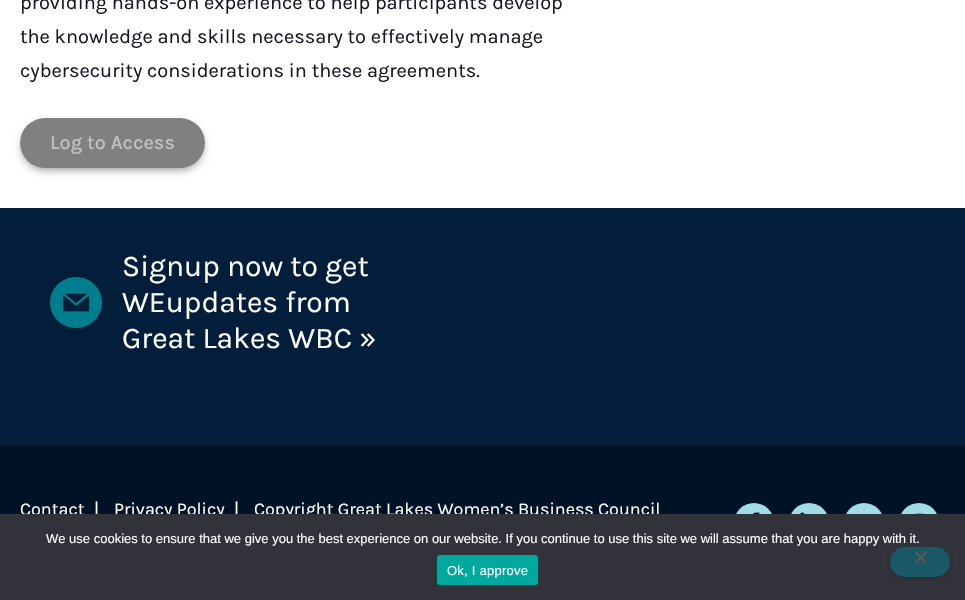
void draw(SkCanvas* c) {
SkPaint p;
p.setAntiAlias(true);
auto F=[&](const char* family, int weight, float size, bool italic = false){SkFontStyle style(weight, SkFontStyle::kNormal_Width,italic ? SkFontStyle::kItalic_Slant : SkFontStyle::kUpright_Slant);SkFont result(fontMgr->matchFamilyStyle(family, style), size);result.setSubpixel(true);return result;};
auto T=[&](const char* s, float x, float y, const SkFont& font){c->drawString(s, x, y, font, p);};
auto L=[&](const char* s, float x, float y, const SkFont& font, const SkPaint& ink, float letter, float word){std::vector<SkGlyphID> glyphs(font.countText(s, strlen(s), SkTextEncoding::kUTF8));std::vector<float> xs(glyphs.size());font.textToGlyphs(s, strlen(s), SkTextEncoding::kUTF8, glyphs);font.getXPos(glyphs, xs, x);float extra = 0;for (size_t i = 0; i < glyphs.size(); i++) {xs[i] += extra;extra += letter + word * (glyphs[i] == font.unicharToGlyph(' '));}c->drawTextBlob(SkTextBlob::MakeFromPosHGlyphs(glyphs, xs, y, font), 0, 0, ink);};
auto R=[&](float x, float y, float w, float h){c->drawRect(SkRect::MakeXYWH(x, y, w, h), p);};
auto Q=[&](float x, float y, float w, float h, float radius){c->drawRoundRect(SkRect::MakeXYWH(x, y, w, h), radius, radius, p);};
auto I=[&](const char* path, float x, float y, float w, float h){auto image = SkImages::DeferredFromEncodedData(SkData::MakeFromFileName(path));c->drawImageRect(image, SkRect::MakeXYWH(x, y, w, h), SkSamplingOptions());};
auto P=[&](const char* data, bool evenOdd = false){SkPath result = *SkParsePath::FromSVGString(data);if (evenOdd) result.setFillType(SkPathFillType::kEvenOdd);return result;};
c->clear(0xffffffff);
auto f1 = F("Karla",400,20);
p.setColor(0xff161925);
T("providing hands-on experience to help participants develop",20,9,f1);
T("the knowledge and skills necessary to effectively manage",20,43,f1);
T("cybersecurity considerations in these agreements.",20,77,f1);
p.setColor(0x66000000);
p.setMaskFilter(SkMaskFilter::MakeBlur(kNormal_SkBlurStyle, 4.5));
c->drawRoundRect(SkRect::MakeXYWH(22,124,181,46),23,23,p);
p.setMaskFilter(nullptr);
p.setColor(0xff808080);
Q(20,118,185,50,25);
auto f2 = F("Karla",500,20);
p.setColor(0xffc0c0c0);
T("Log to Access",50,149,f2);
p.setColor(0xff021e3a);
R(0,208,965,238);
I("1.png",50,277,52,51);
auto f3 = F("Karla",400,30);
p.setColor(0xffffffff);
T("Signup now to get",122,276,f3);
T("WEupdates from",122,312,f3);
T("Great Lakes WBC »",122,348,f3);
p.setColor(0xff001326);
R(0,446,965,68);
auto f4 = F("Karla",400,18);
p.setColor(0xffffffff);
T("Contact",20,515,f4);
T("|",94,515,f4);
T("Privacy Policy",114,515,f4);
T("|",234,515,f4);
T("Copyright Great Lakes Women’s Business Council",254,515,f4);
p.setColor(0xffa1dbe3);
c->drawCircle(754,523,20,p);
I("2.png",753,512,7,2);
c->drawCircle(809,523,20,p);
I("3.png",800,512,5,2);
c->drawCircle(864,523,20,p);
c->drawCircle(919,523,20,p);
I("4.png",914,513,10,1);
p.setColor(0xff32323a);
R(0,514,965,86);
auto f5 = F("Liberation Sans",400,13);
p.setColor(0xffffffff);
T("We use cookies to ensure that we give you the best experience on our website. If you continue to use this site we will assume that you are happy with it.",46,543,f5);
p.setColor(0x6619191d);
p.setMaskFilter(SkMaskFilter::MakeBlur(kNormal_SkBlurStyle, 4.5));
c->drawRoundRect(SkRect::MakeXYWH(892,553,56,26),13,13,p);
p.setMaskFilter(nullptr);
p.setColor(0xff195864);
Q(890,547,60,30,15);
p.setColor(0xff59595d);
c->drawPath(P("M925.5 551.5l1.5 1.5l-10.5 10.5l-1.5-1.5z"),p);
c->drawPath(P("M915 553l1.5-1.5l10.5 10.5l-1.5 1.5z"),p);
p.setColor(0xff00a99d);
Q(437,555,101,30,3);
p.setColor(0xffffffff);
L("Ok, I approve",447,575,f5,p,.25,0);
}
